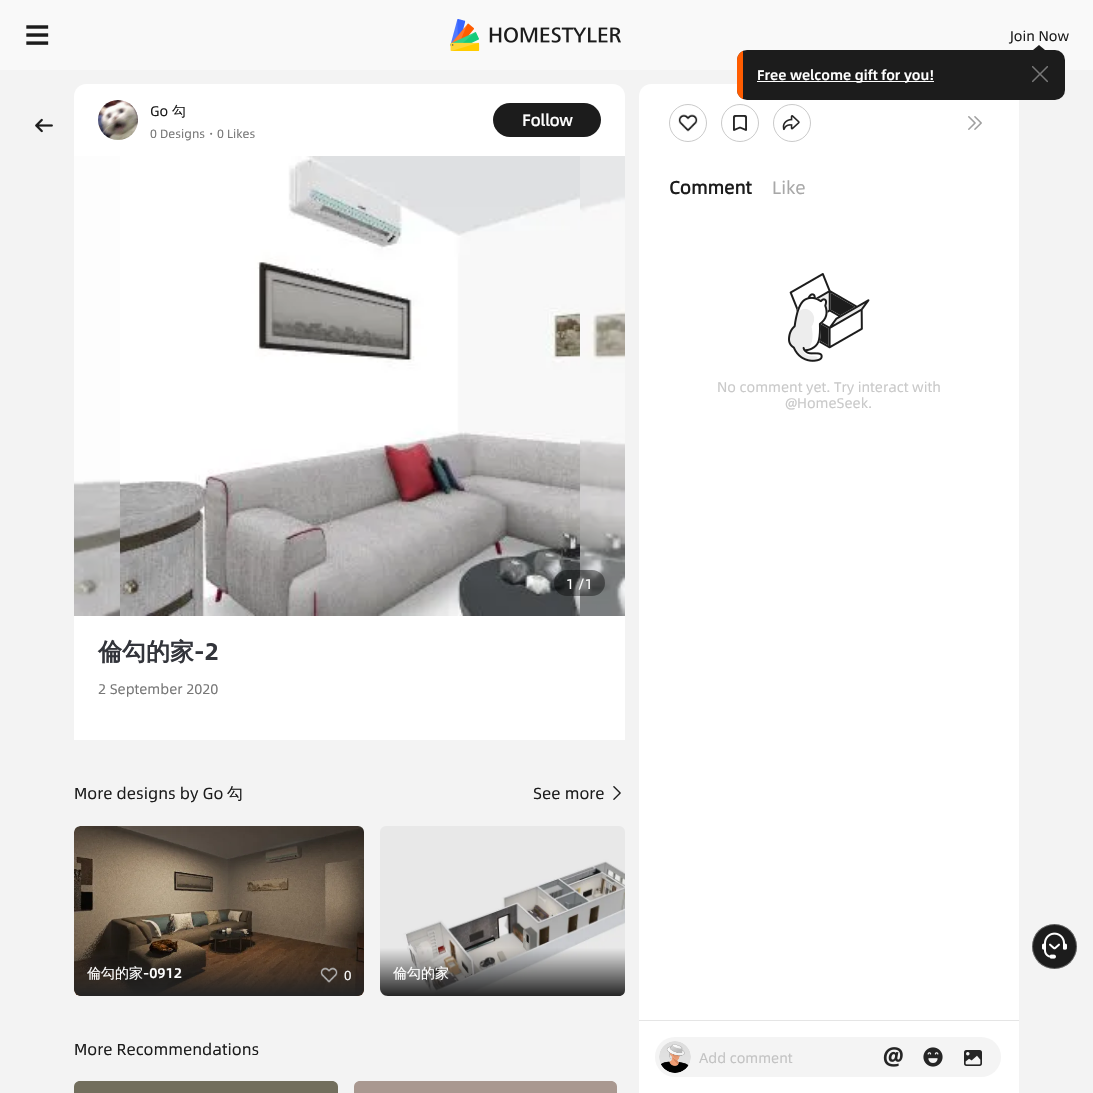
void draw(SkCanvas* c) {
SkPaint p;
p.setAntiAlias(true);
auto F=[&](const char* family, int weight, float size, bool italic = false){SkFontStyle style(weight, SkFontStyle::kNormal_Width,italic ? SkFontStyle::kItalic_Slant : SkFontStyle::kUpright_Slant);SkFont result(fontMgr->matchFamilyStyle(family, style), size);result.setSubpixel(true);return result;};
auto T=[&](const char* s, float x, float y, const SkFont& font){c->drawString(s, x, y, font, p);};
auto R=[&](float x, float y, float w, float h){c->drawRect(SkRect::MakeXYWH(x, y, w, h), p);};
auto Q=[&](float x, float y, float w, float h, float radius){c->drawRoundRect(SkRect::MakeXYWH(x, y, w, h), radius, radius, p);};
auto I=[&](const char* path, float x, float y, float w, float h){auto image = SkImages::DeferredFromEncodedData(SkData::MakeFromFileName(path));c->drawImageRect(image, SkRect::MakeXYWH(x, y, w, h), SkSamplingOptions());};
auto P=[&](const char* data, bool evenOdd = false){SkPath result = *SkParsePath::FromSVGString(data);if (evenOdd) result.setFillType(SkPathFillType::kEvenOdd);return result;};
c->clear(0xfff3f3f3);
p.setColor(0xfff9f9f9);
R(0,0,1093,70);
I("1.png",26,25,23,20);
I("2.png",450,19,171,32);
auto f1 = F("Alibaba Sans",400,14);
p.setColor(0xff1c1c1c);
T("Join Now",1010,41,f1);
c->drawPath(P("M1045 50h-12l6-5z"),p);
p.setColor(0xffffffff);
c->drawPath(P("M651 84h356c6.5 0 12 5.5 12 12v997h-380v-997c0-6.5 5.5-12 12-12z"),p);
p.setColor(0xff1c1c1c);
Q(737,50,328,50,10);
c->save();
c->clipPath(P("M747 50h308c5.5 0 10 4.5 10 10v30c0 5.5-4.5 10-10 10h-308c-5.5 0-10-4.5-10-10v-30c0-5.5 4.5-10 10-10z"),true);
p.setColor(0xffff5c00);
R(737,50,6,50);
c->restore();
p.setColor(0xffffffff);
R(757,81,177,1);
auto f2 = F("Alibaba Sans",500,14);
T("Free welcome gift for you!",757,80,f2);
I("3.png",1032,66,16,17);
I("4.png",35,118,18,15);
c->drawPath(P("M86 84h527c6.5 0 12 5.5 12 12v644h-551v-644c0-6.5 5.5-12 12-12z"),p);
I("5.png",98,100,40,40);
p.setColor(0xff1c1c1c);
T("Go",150,116,f1);
auto f3 = F("WenQuanYi Zen Hei",500,14);
T("勾",172,116,f3);
auto f4 = F("Alibaba Sans",400,12);
p.setColor(0xff777777);
T("0 Designs",150,138,f4);
auto f5 = F("WenQuanYi Zen Hei",500,12);
T("・",205,138,f5);
T("0 Likes",217,138,f4);
p.setColor(0xff1c1c1c);
Q(493,103,108,34,17);
auto f6 = F("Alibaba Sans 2",700,16);
p.setColor(0xffffffff);
T("Follow",522,126,f6);
I("6.png",74,156,551,460);
I("7.png",120,156,460,460);
p.setColor(0x66000000);
Q(554,570,51,26,13);
p.setColor(0xffffffff);
T("1 /1",566,589,f1);
auto f7 = F("WenQuanYi Zen Hei",700,24);
p.setColor(0xff33353b);
T("倫勾的家",98,660,f7);
auto f8 = F("Alibaba Sans",700,24);
T("-2",194,660,f8);
p.setColor(0xff777777);
T("2 September 2020",98,694,f1);
auto f9 = F("Alibaba Sans",400,16);
p.setColor(0xff1c1c1c);
T("More designs by Go",74,799,f9);
auto f10 = F("WenQuanYi Zen Hei",500,16);
T("勾",227,799,f10);
T("See more",533,799,f9);
I("8.png",613,786,8,14);
p.setColor(0xffffffff);
Q(74,826,290,170,6);
I("9.png",74,826,290,170);
{
const SkColor colors[] = {0x00242424,0xff242424};
const float stops[] = {0,1};
const SkPoint ends[] = {{219,948}, {219,996}};
p.setShader(SkGradientShader::MakeLinear(ends, colors, stops, 2, SkTileMode::kClamp));
p.setAlpha(255);
}
c->drawPath(P("M74 948h290v40c0 4.5-3.5 8-8 8h-274c-4.5 0-8-3.5-8-8z"),p);
p.setShader(nullptr);
p.setColor(0xffffffff);
T("倫勾的家",87,978,f3);
T("-0912",143,978,f2);
I("10.png",320,967,18,16);
auto f11 = F("Alibaba Sans",400,13);
T("0",344,980,f11);
I("11.png",380,826,245,170);
{
const SkColor colors[] = {0x00242424,0xff242424};
const float stops[] = {0,1};
const SkPoint ends[] = {{525,948}, {525,996}};
p.setShader(SkGradientShader::MakeLinear(ends, colors, stops, 2, SkTileMode::kClamp));
p.setAlpha(255);
}
c->drawPath(P("M380 948h245v42c0 3.5-2.5 6-6 6h-231c-4.5 0-8-3.5-8-8z"),p);
p.setShader(nullptr);
p.setColor(0xffffffff);
T("倫勾的家",393,978,f3);
p.setColor(0xff1c1c1c);
T("More Recommendations",74,1055,f9);
p.setColor(0xff726e5d);
c->drawPath(P("M80 1081h252c3.5 0 6 2.5 6 6v6h-264v-6c0-3.5 2.5-6 6-6z"),p);
p.setColor(0xffa99890);
c->drawPath(P("M360 1081h251c3.5 0 6 2.5 6 6v6h-263v-6c0-3.5 2.5-6 6-6z"),p);
p.setStroke(true);
p.setStrokeWidth(1);
p.setColor(0xffcacaca);
c->drawCircle(688,123,18.5,p);
I("12.png",678,114,20,18);
c->drawCircle(740,123,18.5,p);
I("13.png",733,115,14,16);
c->drawCircle(792,123,18.5,p);
I("14.png",782,115,18,16);
I("15.png",968,116,14,14);
auto f12 = F("Alibaba Sans 2",700,18);
p.setStroke(false);
p.setColor(0xff1c1c1c);
T("Comment",669,194,f12);
auto f13 = F("Alibaba Sans",400,18);
p.setColor(0xffa8a8a8);
T("Like",772,194,f13);
I("16.png",788,273,82,89);
p.setColor(0xffc9c9c9);
T("No comment yet. Try interact with",717,392,f1);
T("@HomeSeek.",785,408,f1);
p.setColor(0xffe5e5e5);
R(639,1020,380,1);
p.setColor(0xfff4f4f4);
Q(655,1037,346,40,20);
p.setColor(0xffffffff);
c->drawCircle(675,1057,16,p);
I("17.png",659,1041,32,32);
p.setColor(0xffc3c3c3);
T("Add comment",699,1063,f1);
I("18.png",883,1047,20,20);
I("19.png",923,1047,20,20);
I("20.png",964,1050,18,16);
p.setColor(0xff1c1c1c);
c->drawCircle(1054.5,946.5,22.5,p);
p.setStroke(true);
p.setColor(0x4dffffff);
c->drawCircle(1054.5,946.5,22,p);
I("21.png",1042,932,25,27);
}
